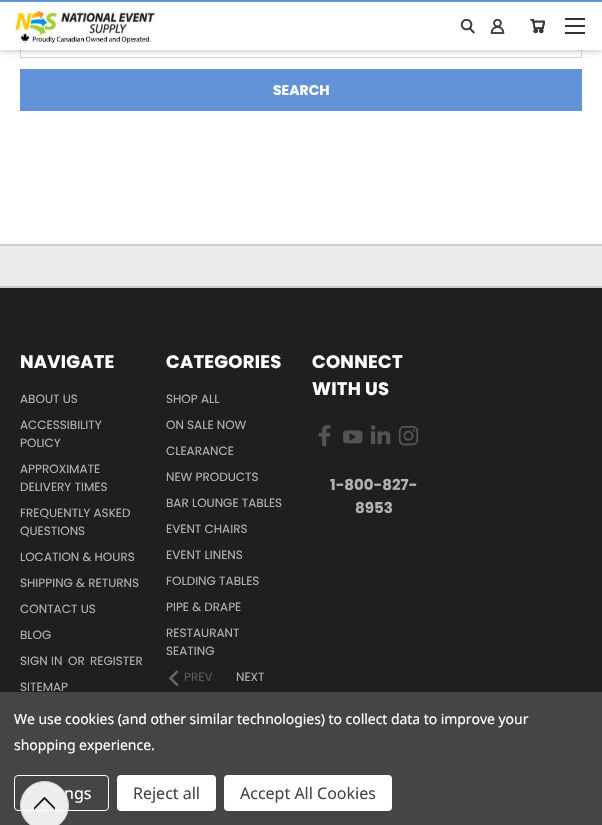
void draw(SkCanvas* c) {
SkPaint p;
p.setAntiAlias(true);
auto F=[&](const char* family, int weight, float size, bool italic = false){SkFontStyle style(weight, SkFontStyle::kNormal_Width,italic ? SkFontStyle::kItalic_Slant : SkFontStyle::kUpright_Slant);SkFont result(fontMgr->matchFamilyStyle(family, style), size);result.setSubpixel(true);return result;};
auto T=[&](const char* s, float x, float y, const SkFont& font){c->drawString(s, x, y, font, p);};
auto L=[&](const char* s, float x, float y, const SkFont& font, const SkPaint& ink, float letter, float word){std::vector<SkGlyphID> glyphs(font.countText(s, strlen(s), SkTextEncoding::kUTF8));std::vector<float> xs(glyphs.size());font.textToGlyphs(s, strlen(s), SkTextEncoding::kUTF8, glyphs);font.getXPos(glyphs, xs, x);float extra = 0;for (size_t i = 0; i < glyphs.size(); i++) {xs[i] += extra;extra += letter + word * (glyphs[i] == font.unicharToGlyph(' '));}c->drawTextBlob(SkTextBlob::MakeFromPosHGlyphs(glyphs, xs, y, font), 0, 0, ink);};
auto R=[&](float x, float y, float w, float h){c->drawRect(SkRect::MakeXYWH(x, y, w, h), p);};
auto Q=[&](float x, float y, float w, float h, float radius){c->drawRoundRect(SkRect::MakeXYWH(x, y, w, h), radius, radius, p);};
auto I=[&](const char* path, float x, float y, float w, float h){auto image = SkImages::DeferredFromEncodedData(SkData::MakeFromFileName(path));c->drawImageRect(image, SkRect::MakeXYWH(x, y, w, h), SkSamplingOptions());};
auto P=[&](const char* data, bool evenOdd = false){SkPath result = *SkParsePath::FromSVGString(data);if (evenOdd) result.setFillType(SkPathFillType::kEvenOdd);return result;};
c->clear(0xffffffff);
p.setStroke(true);
p.setStrokeWidth(1);
p.setColor(0xffd7d7d7);
c->drawRect(SkRect::MakeXYWH(20.5,16.5,561,41),p);
p.setStroke(false);
p.setColor(0x4d000000);
p.setMaskFilter(SkMaskFilter::MakeBlur(kNormal_SkBlurStyle, 3.5));
c->drawRect(SkRect::MakeXYWH(0,0,602,50),p);
p.setMaskFilter(nullptr);
p.setColor(0xffffffff);
R(0,2,602,48);
p.setColor(0xff6293d6);
R(0,0,602,2);
I("1.png",15,10,141,33);
I("2.png",460,19,15,15);
I("3.png",490,19,15,15);
I("4.png",530,19,15,15);
p.setColor(0xff333333);
R(565,25,20,2);
R(565,18,20,2);
R(565,32,20,2);
p.setColor(0xff6293d6);
R(20,69,562,42);
auto f1 = F("Poppins",700,14);
p.setColor(0xffffffff);
T("SEARCH",273,95,f1);
p.setColor(0xffebebeb);
R(0,246,602,40);
p.setColor(0xffcdcccc);
R(0,244,602,2);
p.setColor(0xff1f1f1f);
R(0,288,602,404);
p.setColor(0xffcdcccc);
R(0,286,602,2);
auto f2 = F("Poppins",700,18);
p.setColor(0xffffffff);
L("NAVIGATE",20,368,f2,p,.25,0);
auto f3 = F("Poppins",400,12);
p.setColor(0xffb2b2b2);
T("ABOUT US",20,403,f3);
T("ACCESSIBILITY",20,429,f3);
T("POLICY",20,447,f3);
T("APPROXIMATE",20,473,f3);
T("DELIVERY TIMES",20,491,f3);
T("FREQUENTLY ASKED",20,517,f3);
T("QUESTIONS",20,535,f3);
T("LOCATION & HOURS",20,561,f3);
T("SHIPPING & RETURNS",20,587,f3);
T("CONTACT US",20,613,f3);
T("BLOG",20,639,f3);
T("SIGN IN",20,665,f3);
T("OR",68,665,f3);
T("REGISTER",90,665,f3);
T("SITEMAP",20,691,f3);
p.setColor(0xffffffff);
L("CATEGORIES",166,368,f2,p,.25,0);
p.setColor(0xffb2b2b2);
T("SHOP ALL",166,403,f3);
T("ON SALE NOW",166,429,f3);
T("CLEARANCE",166,455,f3);
T("NEW PRODUCTS",166,481,f3);
T("BAR LOUNGE TABLES",166,507,f3);
T("EVENT CHAIRS",166,533,f3);
T("EVENT LINENS",166,559,f3);
T("FOLDING TABLES",166,585,f3);
T("PIPE & DRAPE",166,611,f3);
T("RESTAURANT",166,637,f3);
T("SEATING",166,655,f3);
I("5.png",169,670,10,16);
p.setColor(0xff5a5a5a);
T("PREV",184,681,f3);
p.setColor(0xffb2b2b2);
T("NEXT",236,681,f3);
p.setColor(0xffffffff);
L("CONNECT",312,368,f2,p,.25,0);
L("WITH US",312,395,f2,p,.25,0);
I("6.png",318,425,13,22);
I("7.png",343,430,20,14);
I("8.png",370,425,21,20);
I("9.png",398,425,21,21);
auto f4 = F("Poppins",700,15);
p.setColor(0xffb2b2b2);
T("1-800-827-",330,490,f4);
T("8953",355,513,f4);
p.setColor(0xff454545);
R(0,692,602,133);
p.setStroke(true);
p.setColor(0xffffffff);
c->drawRoundRect(SkRect::MakeXYWH(14.5,775.5,94,35),3.5,3.5,p);
auto f5 = F("Noto Sans",400,16);
p.setStroke(false);
T("ngs",64,799,f5);
p.setColor(0xe6ffffff);
c->drawCircle(44.5,805.5,24,p);
p.setStroke(true);
p.setColor(0xffd7d7d7);
c->drawCircle(44.5,805.5,24,p);
c->save();
c->clipPath(P("M55 796.5v21h-21v-21z"),true);
p.setStrokeWidth(1.8);
p.setStrokeCap(SkPaint::kRound_Cap);
p.setStrokeJoin(SkPaint::kRound_Join);
p.setColor(0xff1f1f1f);
c->drawPath(P("M62 816l-17.5-18l-17.5 18"),p);
c->restore();
auto f6 = F("Noto Sans",400,14);
p.setStroke(false);
p.setColor(0xffffffff);
L("We use cookies (and other similar technologies) to collect data to improve your",14,724,f6,p,-.05,0);
L("shopping experience.",14,750,f6,p,-.05,0);
Q(117,775,99,36,4);
p.setColor(0xff454545);
T("Reject all",133,799,f5);
p.setColor(0xffffffff);
Q(224,775,168,36,4);
p.setColor(0xff454545);
T("Accept All Cookies",240,799,f5);
}
